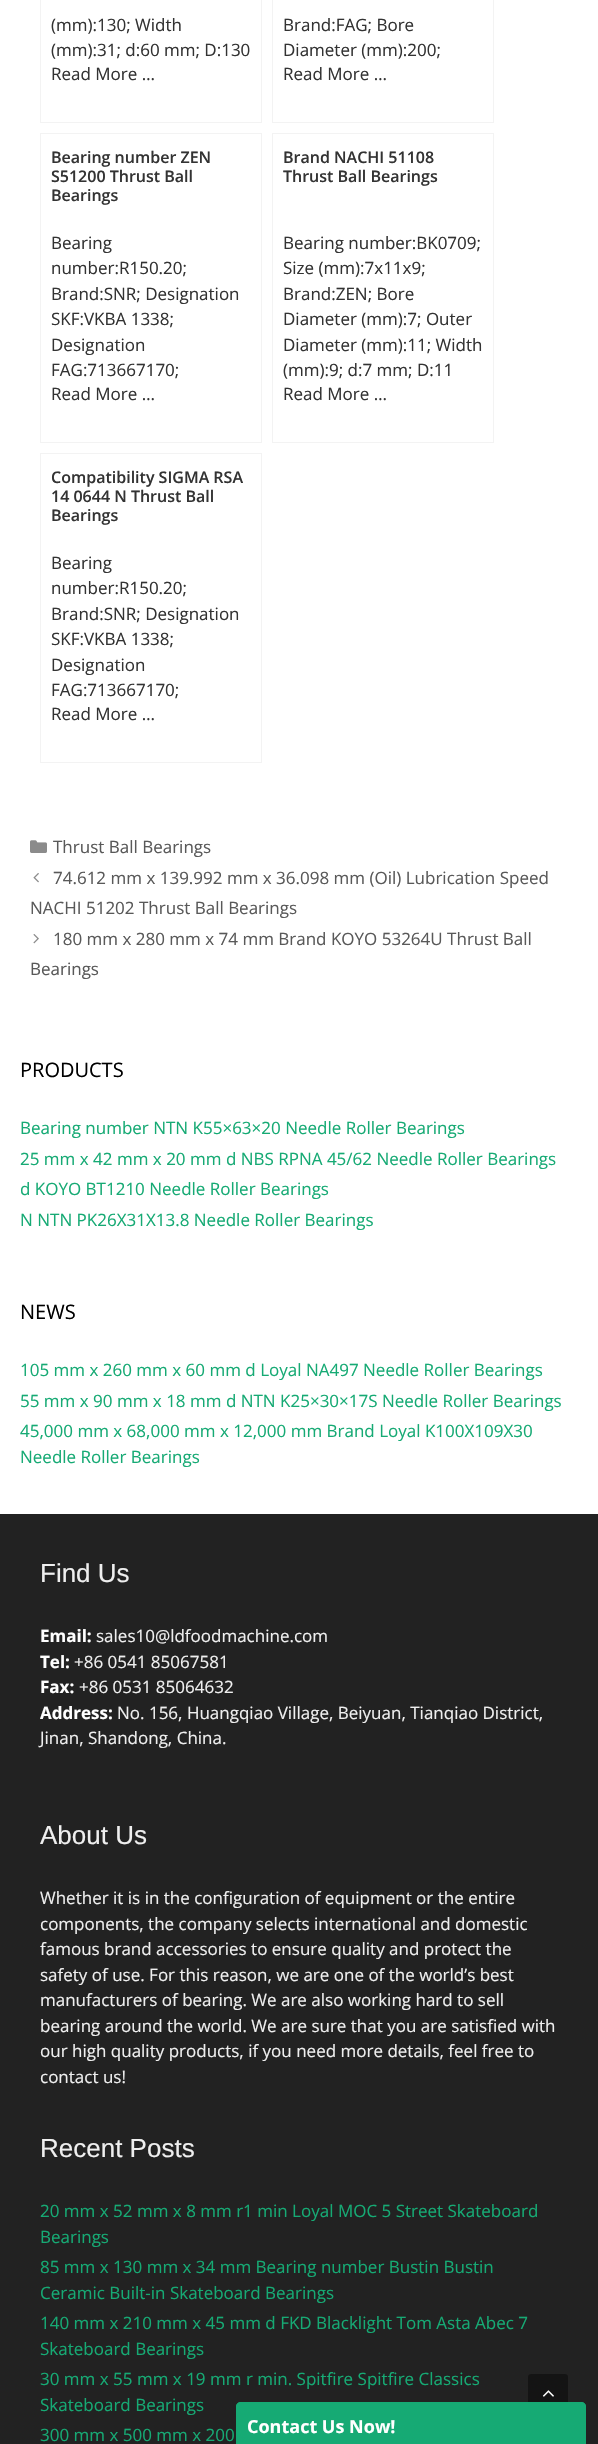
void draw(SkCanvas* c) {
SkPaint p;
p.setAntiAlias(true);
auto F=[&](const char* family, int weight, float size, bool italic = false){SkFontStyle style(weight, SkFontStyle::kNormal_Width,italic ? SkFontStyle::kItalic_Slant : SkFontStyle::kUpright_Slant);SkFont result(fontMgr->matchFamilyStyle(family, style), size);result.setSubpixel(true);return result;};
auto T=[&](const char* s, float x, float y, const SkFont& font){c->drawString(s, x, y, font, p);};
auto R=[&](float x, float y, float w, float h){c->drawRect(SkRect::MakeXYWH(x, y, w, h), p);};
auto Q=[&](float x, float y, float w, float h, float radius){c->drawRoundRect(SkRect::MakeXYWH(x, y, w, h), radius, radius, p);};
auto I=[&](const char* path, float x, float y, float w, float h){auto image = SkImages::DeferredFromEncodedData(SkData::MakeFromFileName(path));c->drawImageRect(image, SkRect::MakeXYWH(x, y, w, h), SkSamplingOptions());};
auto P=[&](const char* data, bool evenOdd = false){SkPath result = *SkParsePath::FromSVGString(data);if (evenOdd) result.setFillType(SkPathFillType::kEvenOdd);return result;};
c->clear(0xffffffff);
p.setStroke(true);
p.setStrokeWidth(1);
p.setColor(0xfff3f3f3);
c->drawRect(SkRect::MakeXYWH(40.5,-.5,221,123),p);
auto f1 = F("Open Sans",400,17);
p.setStroke(false);
p.setColor(0xff333333);
T("(mm):130; Width",51,31,f1);
T("(mm):31; d:60 mm; D:130",51,56,f1);
T("Read More …",51,80,f1);
p.setStroke(true);
p.setColor(0xfff3f3f3);
c->drawRect(SkRect::MakeXYWH(272.5,-.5,221,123),p);
p.setStroke(false);
p.setColor(0xff333333);
T("Brand:FAG; Bore",283,31,f1);
T("Diameter (mm):200;",283,56,f1);
T("Read More …",283,80,f1);
p.setStroke(true);
p.setColor(0xfff3f3f3);
c->drawRect(SkRect::MakeXYWH(40.5,133.5,221,309),p);
auto f2 = F("Open Sans",600,16);
p.setStroke(false);
p.setColor(0xff333333);
T("Bearing number ZEN",51,163,f2);
T("S51200 Thrust Ball",51,182,f2);
T("Bearings",51,201,f2);
T("Bearing",51,249,f1);
T("number:R150.20;",51,274,f1);
T("Brand:SNR; Designation",51,300,f1);
T("SKF:VKBA 1338;",51,325,f1);
T("Designation",51,351,f1);
T("FAG:713667170;",51,376,f1);
T("Read More …",51,400,f1);
p.setStroke(true);
p.setColor(0xfff3f3f3);
c->drawRect(SkRect::MakeXYWH(272.5,133.5,221,309),p);
p.setStroke(false);
p.setColor(0xff333333);
T("Brand NACHI 51108",283,163,f2);
T("Thrust Ball Bearings",283,182,f2);
T("Bearing number:BK0709;",283,249,f1);
T("Size (mm):7x11x9;",283,274,f1);
T("Brand:ZEN; Bore",283,300,f1);
T("Diameter (mm):7; Outer",283,325,f1);
T("Diameter (mm):11; Width",283,351,f1);
T("(mm):9; d:7 mm; D:11",283,376,f1);
T("Read More …",283,400,f1);
p.setStroke(true);
p.setColor(0xfff3f3f3);
c->drawRect(SkRect::MakeXYWH(40.5,453.5,221,309),p);
p.setStroke(false);
p.setColor(0xff333333);
T("Compatibility SIGMA RSA",51,483,f2);
T("14 0644 N Thrust Ball",51,502,f2);
T("Bearings",51,521,f2);
T("Bearing",51,569,f1);
T("number:R150.20;",51,594,f1);
T("Brand:SNR; Designation",51,620,f1);
T("SKF:VKBA 1338;",51,645,f1);
T("Designation",51,671,f1);
T("FAG:713667170;",51,696,f1);
T("Read More …",51,720,f1);
I("1.png",30,840,17,13);
p.setColor(0xff595959);
T("Thrust Ball Bearings",53,853,f1);
I("2.png",33,873,6,10);
T("74.612 mm x 139.992 mm x 36.098 mm (Oil) Lubrication Speed",53,884,f1);
T("NACHI 51202 Thrust Ball Bearings",30,914,f1);
I("3.png",33,934,6,10);
T("180 mm x 280 mm x 74 mm Brand KOYO 53264U Thrust Ball",53,945,f1);
T("Bearings",30,975,f1);
auto f3 = F("Open Sans",400,20);
p.setColor(0xff000000);
T("PRODUCTS",20,1077,f3);
p.setColor(0xff16aa74);
T("Bearing number NTN K55×63×20 Needle Roller Bearings",20,1134,f1);
T("25 mm x 42 mm x 20 mm d NBS RPNA 45/62 Needle Roller Bearings",20,1165,f1);
T("d KOYO BT1210 Needle Roller Bearings",20,1195,f1);
T("N NTN PK26X31X13.8 Needle Roller Bearings",20,1226,f1);
p.setColor(0xff000000);
T("NEWS",20,1319,f3);
p.setColor(0xff16aa74);
T("105 mm x 260 mm x 60 mm d Loyal NA497 Needle Roller Bearings",20,1376,f1);
T("55 mm x 90 mm x 18 mm d NTN K25×30×17S Needle Roller Bearings",20,1407,f1);
T("45,000 mm x 68,000 mm x 12,000 mm Brand Loyal K100X109X30",20,1437,f1);
T("Needle Roller Bearings",20,1463,f1);
p.setColor(0xff222222);
R(0,1514,598,930);
auto f4 = F("Liberation Sans",400,26);
p.setColor(0xffefefef);
T("Find Us",40,1582,f4);
auto f5 = F("Open Sans",700,17);
p.setColor(0xffffffff);
T("Email:",40,1642,f5);
p.setColor(0xffefefef);
T("sales10@ldfoodmachine.com",96,1642,f1);
p.setColor(0xffffffff);
T("Tel:",40,1668,f5);
p.setColor(0xffefefef);
T("+86 0541 85067581",74,1668,f1);
p.setColor(0xffffffff);
T("Fax:",40,1693,f5);
p.setColor(0xffefefef);
T("+86 0531 85064632",79,1693,f1);
p.setColor(0xffffffff);
T("Address:",40,1719,f5);
p.setColor(0xffefefef);
T("No. 156, Huangqiao Village, Beiyuan, Tianqiao District,",117,1719,f1);
T("Jinan, Shandong, China.",40,1744,f1);
T("About Us",40,1844,f4);
T("Whether it is in the configuration of equipment or the entire",40,1904,f1);
T("components, the company selects international and domestic",40,1930,f1);
T("famous brand accessories to ensure quality and protect the",40,1955,f1);
T("safety of use. For this reason, we are one of the world’s best",40,1981,f1);
T("manufacturers of bearing. We are also working hard to sell",40,2006,f1);
T("bearing around the world. We are sure that you are satisfied with",40,2032,f1);
T("our high quality products, if you need more details, feel free to",40,2057,f1);
T("contact us!",40,2083,f1);
T("Recent Posts",40,2157,f4);
p.setColor(0xff16aa74);
T("20 mm x 52 mm x 8 mm r1 min Loyal MOC 5 Street Skateboard",40,2217,f1);
T("Bearings",40,2243,f1);
T("85 mm x 130 mm x 34 mm Bearing number Bustin Bustin",40,2273,f1);
T("Ceramic Built-in Skateboard Bearings",40,2299,f1);
T("140 mm x 210 mm x 45 mm d FKD Blacklight Tom Asta Abec 7",40,2329,f1);
T("Skateboard Bearings",40,2355,f1);
T("30 mm x 55 mm x 19 mm r min. Spitfire Spitfire Classics",40,2385,f1);
T("Skateboard Bearings",40,2411,f1);
T("300 mm x 500 mm x 200",40,2441,f1);
p.setColor(0xff141414);
Q(528,2374,40,40,3);
I("4.png",542,2390,12,7);
p.setColor(0xff16aa74);
c->drawPath(P("M240 2402.5h342c2 0 3.5 1.5 3.5 3.5v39.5h-349v-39.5c0-2 1.5-3.5 3.5-3.5z"),p);
p.setStroke(true);
c->drawPath(P("M240 2402.5h342c2 0 3.5 1.5 3.5 3.5v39.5h-349v-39.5c0-2 1.5-3.5 3.5-3.5z"),p);
auto f6 = F("Open Sans",700,18);
p.setStroke(false);
p.setColor(0xffffffff);
T("Contact Us Now!",247,2433,f6);
}
